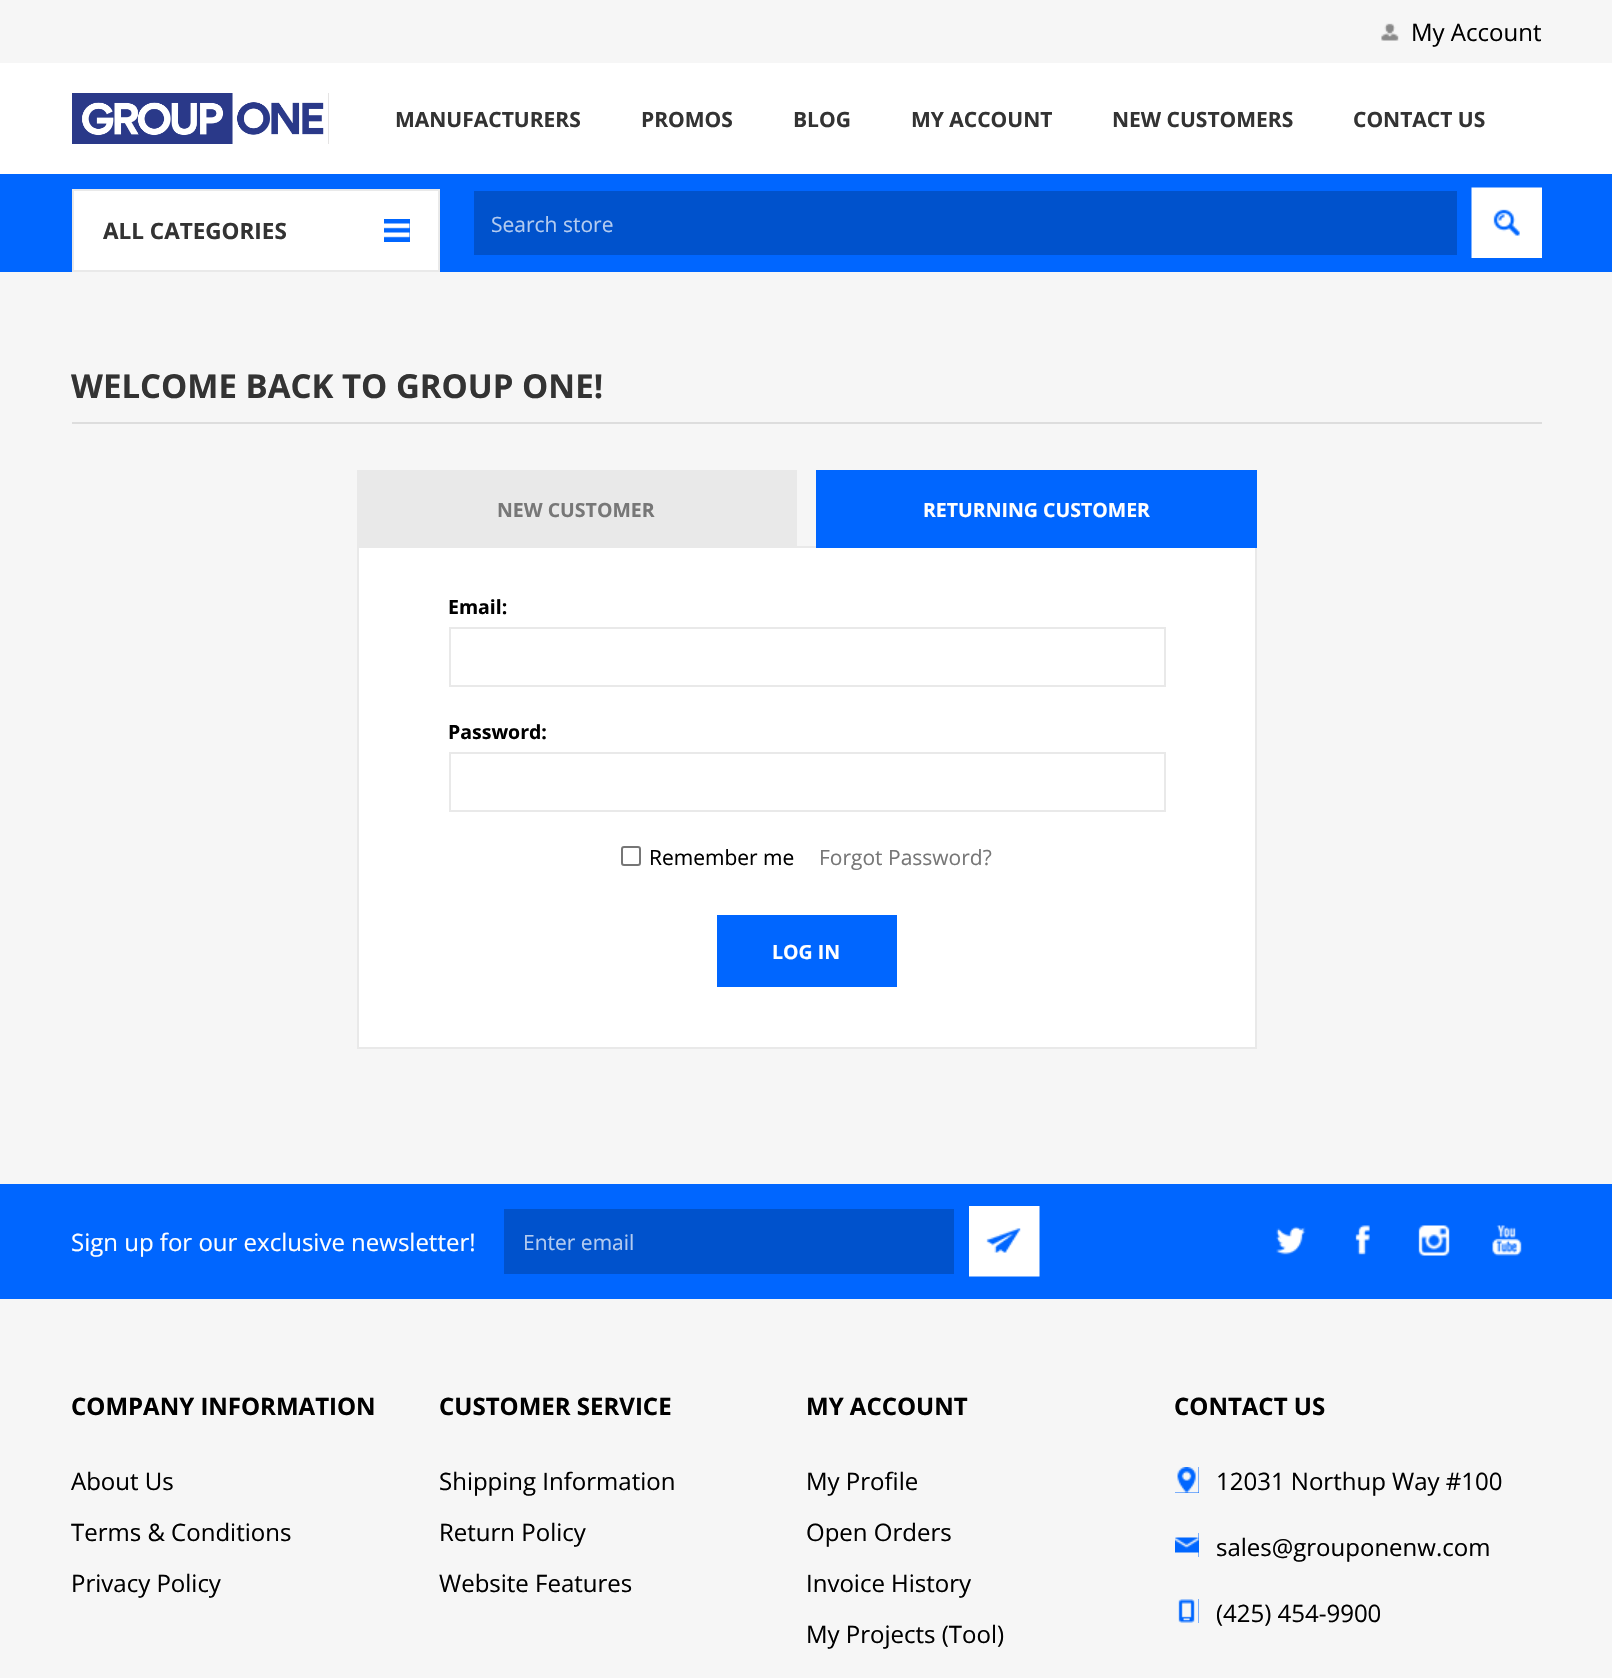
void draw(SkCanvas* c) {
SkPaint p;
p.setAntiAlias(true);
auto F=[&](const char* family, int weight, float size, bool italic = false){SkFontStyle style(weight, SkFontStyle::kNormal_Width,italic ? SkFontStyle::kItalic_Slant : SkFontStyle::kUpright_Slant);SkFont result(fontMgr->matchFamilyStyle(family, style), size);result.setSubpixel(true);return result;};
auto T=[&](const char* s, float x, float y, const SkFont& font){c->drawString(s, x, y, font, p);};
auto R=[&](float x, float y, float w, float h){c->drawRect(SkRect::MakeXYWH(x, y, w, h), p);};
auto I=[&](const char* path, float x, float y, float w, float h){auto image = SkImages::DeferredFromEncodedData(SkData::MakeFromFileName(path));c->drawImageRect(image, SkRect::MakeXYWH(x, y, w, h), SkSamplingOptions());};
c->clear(0xfff6f6f6);
I("1.png",1381,23,18,18);
auto f1 = F("Open Sans",400,24);
p.setColor(0xff000000);
T("My Account",1411,41,f1);
p.setColor(0xffffffff);
R(0,63,1612,111);
p.setColor(0xffccc9c9);
R(72,93,257,51);
I("2.png",72,93,257,51);
auto f2 = F("Open Sans",700,21);
p.setColor(0xff333333);
T("MANUFACTURERS",395,127,f2);
T("PROMOS",641,127,f2);
T("BLOG",793,127,f2);
T("MY ACCOUNT",911,127,f2);
T("NEW CUSTOMERS",1112,127,f2);
T("CONTACT US",1353,127,f2);
p.setColor(0xff0066ff);
R(0,174,1612,98);
p.setColor(0xffffffff);
c->drawRect(SkRect::MakeXYWH(73,190,366,81),p);
p.setStroke(true);
p.setStrokeWidth(2);
p.setColor(0xffe9e9e9);
c->drawRect(SkRect::MakeXYWH(73,190,366,81),p);
auto f3 = F("Open Sans",700,22.5);
p.setStroke(false);
p.setColor(0xff333333);
T("ALL CATEGORIES",103,239,f3);
p.setColor(0xff0066ff);
R(384,219,26,23);
I("3.png",384,223,26,15);
p.setColor(0xff0052cc);
R(474,191,983,64);
auto f4 = F("Open Sans",400,21);
p.setColor(0xffb3cbf0);
T("Search store",491,232,f4);
I("4.png",1471,187,71,71);
p.setColor(0xffdddddd);
R(72,422,1470,2);
auto f5 = F("Open Sans",700,33);
p.setColor(0xff333333);
T("WELCOME BACK TO GROUP ONE!",71,398,f5);
p.setColor(0xffffffff);
c->drawRect(SkRect::MakeXYWH(358,547,898,501),p);
p.setStroke(true);
p.setColor(0xffe9e9e9);
c->drawRect(SkRect::MakeXYWH(358,547,898,501),p);
p.setStroke(false);
p.setColor(0xff0066ff);
R(816,470,441,78);
auto f6 = F("Open Sans",700,19.5);
p.setColor(0xffffffff);
T("RETURNING CUSTOMER",923,517,f6);
p.setColor(0xff000000);
T("Email:",448,614,f6);
p.setStroke(true);
p.setColor(0xffe9e9e9);
c->drawRect(SkRect::MakeXYWH(450,628,715,58),p);
p.setStroke(false);
p.setColor(0xff000000);
T("Password:",448,739,f6);
p.setStroke(true);
p.setColor(0xffe9e9e9);
c->drawRect(SkRect::MakeXYWH(450,753,715,58),p);
p.setColor(0xff767676);
c->drawRoundRect(SkRect::MakeXYWH(622,847,18,18),2,2,p);
p.setStroke(false);
p.setColor(0xff000000);
T("Remember me",649,865,f4);
p.setColor(0xff777777);
T("Forgot Password?",819,865,f4);
p.setColor(0xff0066ff);
R(717,915,180,72);
p.setColor(0xffffffff);
T("LOG IN",772,959,f6);
p.setColor(0xffe9e9e9);
R(357,470,440,76);
p.setColor(0xff777777);
T("NEW CUSTOMER",497,517,f6);
p.setColor(0xff0066ff);
R(0,1184,1612,115);
p.setColor(0xffffffff);
T("Sign up for our exclusive newsletter!",71,1251,f1);
p.setColor(0xff0052cc);
R(504,1209,450,65);
p.setColor(0xffb3cbf0);
T("Enter email",523,1250,f4);
I("5.png",969,1206,71,71);
I("6.png",1276,1226,30,29);
I("7.png",1355,1225,15,30);
I("8.png",1418,1225,32,31);
I("9.png",1492,1225,30,31);
auto f7 = F("Open Sans",700,24);
p.setColor(0xff000000);
T("COMPANY INFORMATION",71,1415,f7);
T("About Us",71,1490,f1);
T("Terms & Conditions",71,1541,f1);
T("Privacy Policy",71,1592,f1);
T("CUSTOMER SERVICE",439,1415,f7);
T("Shipping Information",439,1490,f1);
T("Return Policy",439,1541,f1);
T("Website Features",439,1592,f1);
T("MY ACCOUNT",806,1415,f7);
T("My Profile",806,1490,f1);
T("Open Orders",806,1541,f1);
T("Invoice History",806,1592,f1);
T("My Projects (Tool)",806,1643,f1);
T("CONTACT US",1174,1415,f7);
p.setColor(0xff0066ff);
R(1175,1467,24,26);
I("10.png",1175,1467,24,26);
p.setColor(0xff000000);
T("12031 Northup Way #100",1216,1490,f1);
p.setColor(0xff0066ff);
R(1175,1533,24,24);
I("11.png",1175,1533,24,24);
p.setColor(0xff000000);
T("sales@grouponenw.com",1216,1556,f1);
p.setColor(0xff0066ff);
R(1178,1599,21,24);
I("12.png",1175,1599,24,24);
p.setColor(0xff000000);
T("(425) 454-9900",1216,1622,f1);
}
